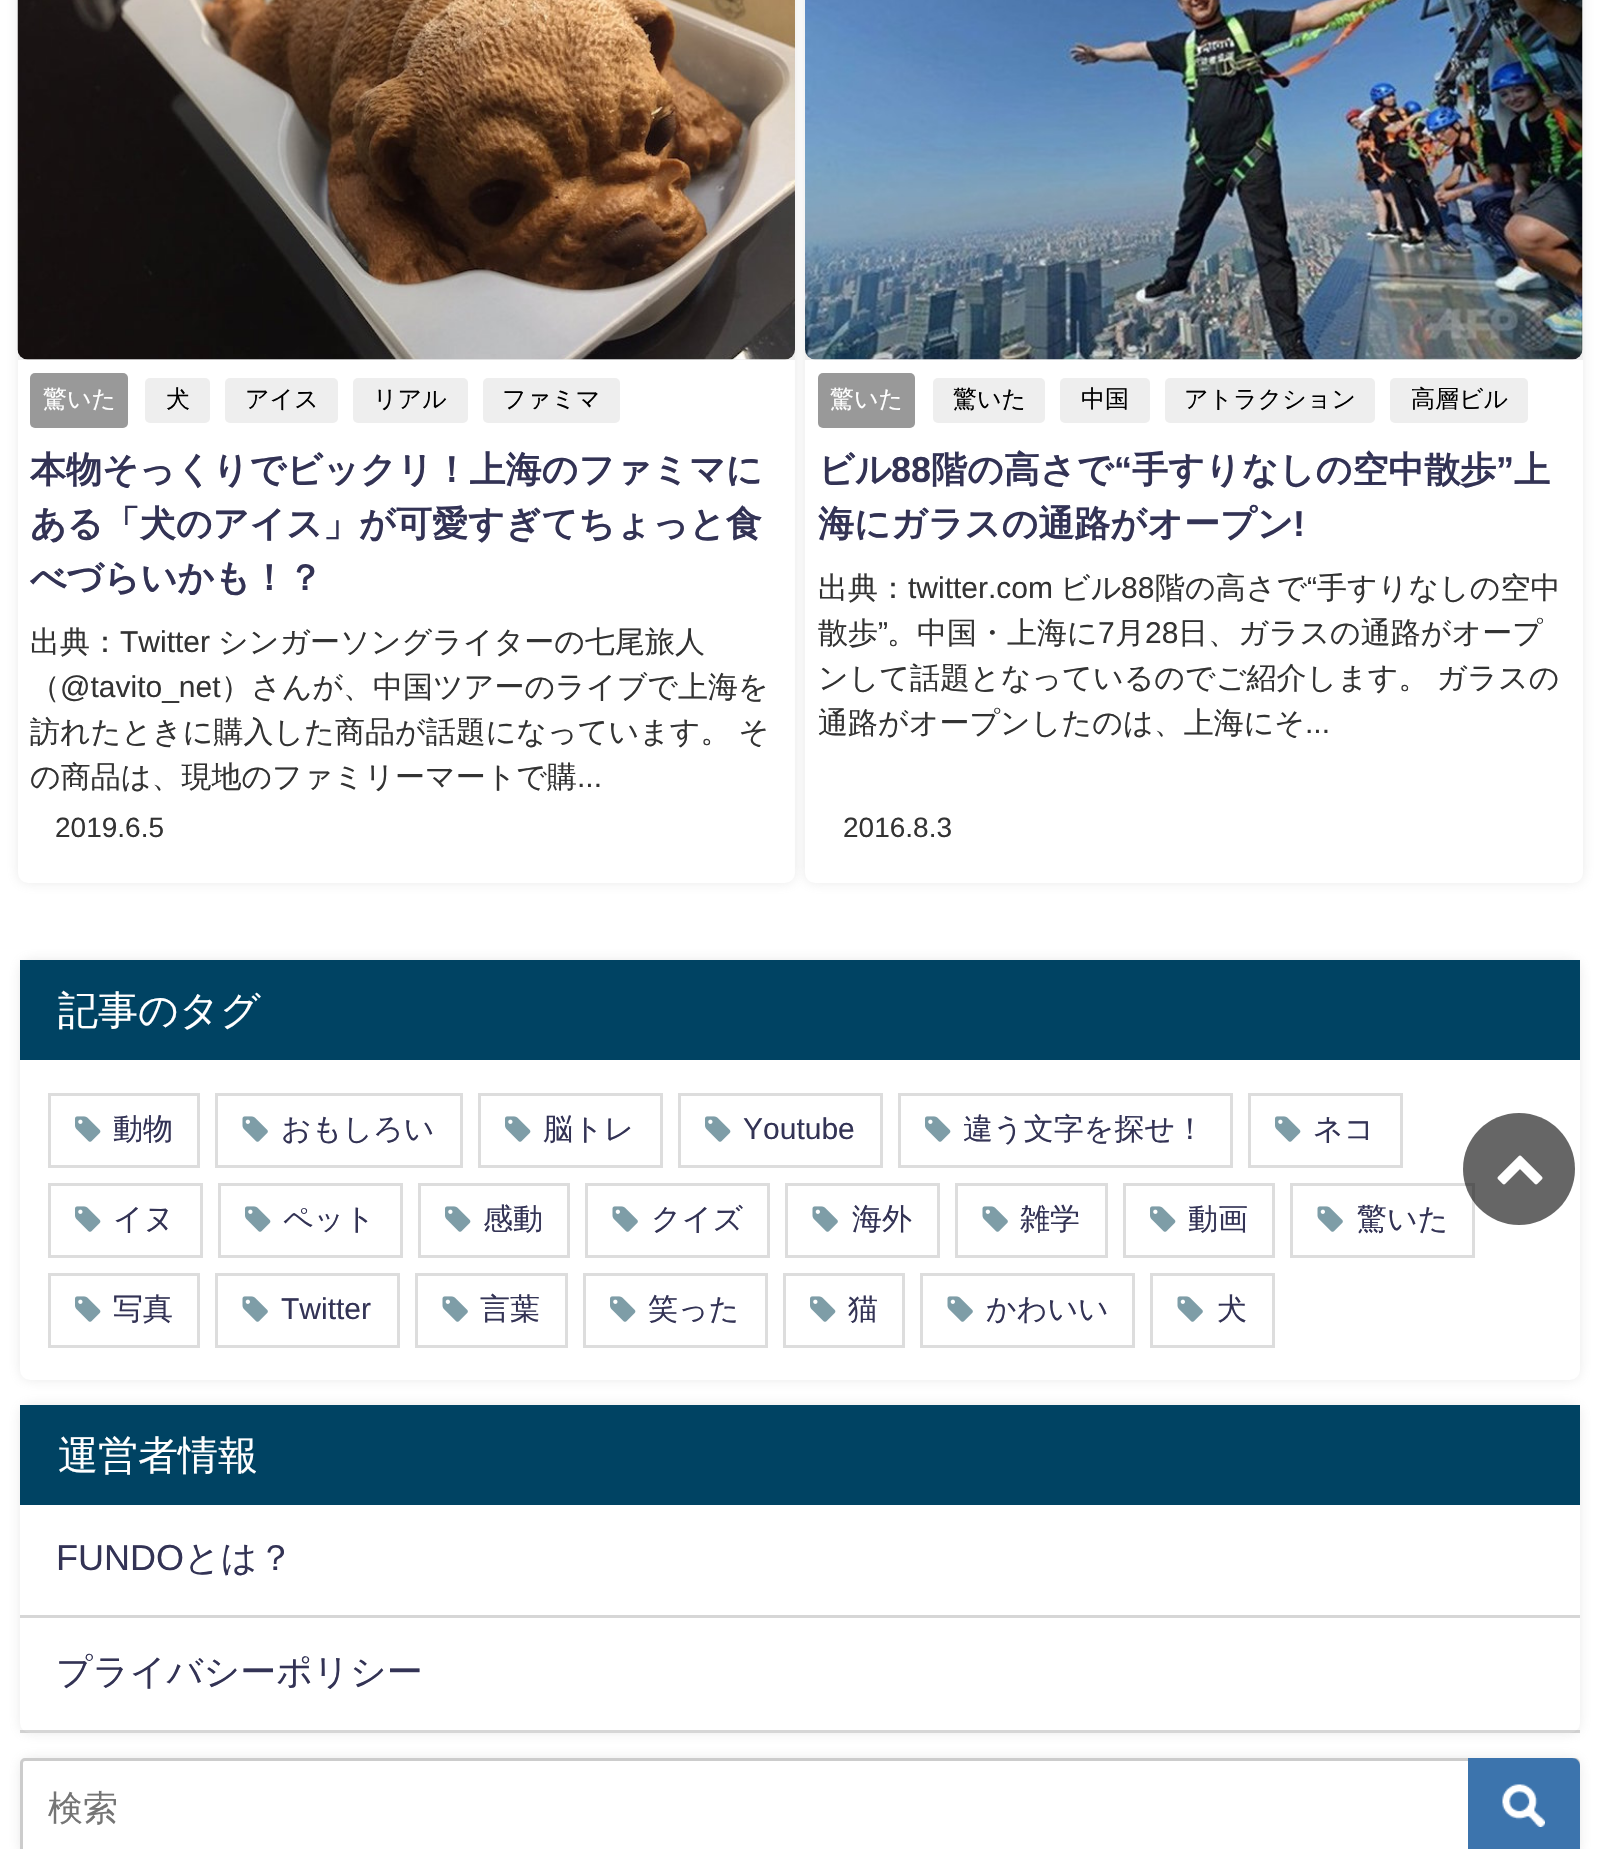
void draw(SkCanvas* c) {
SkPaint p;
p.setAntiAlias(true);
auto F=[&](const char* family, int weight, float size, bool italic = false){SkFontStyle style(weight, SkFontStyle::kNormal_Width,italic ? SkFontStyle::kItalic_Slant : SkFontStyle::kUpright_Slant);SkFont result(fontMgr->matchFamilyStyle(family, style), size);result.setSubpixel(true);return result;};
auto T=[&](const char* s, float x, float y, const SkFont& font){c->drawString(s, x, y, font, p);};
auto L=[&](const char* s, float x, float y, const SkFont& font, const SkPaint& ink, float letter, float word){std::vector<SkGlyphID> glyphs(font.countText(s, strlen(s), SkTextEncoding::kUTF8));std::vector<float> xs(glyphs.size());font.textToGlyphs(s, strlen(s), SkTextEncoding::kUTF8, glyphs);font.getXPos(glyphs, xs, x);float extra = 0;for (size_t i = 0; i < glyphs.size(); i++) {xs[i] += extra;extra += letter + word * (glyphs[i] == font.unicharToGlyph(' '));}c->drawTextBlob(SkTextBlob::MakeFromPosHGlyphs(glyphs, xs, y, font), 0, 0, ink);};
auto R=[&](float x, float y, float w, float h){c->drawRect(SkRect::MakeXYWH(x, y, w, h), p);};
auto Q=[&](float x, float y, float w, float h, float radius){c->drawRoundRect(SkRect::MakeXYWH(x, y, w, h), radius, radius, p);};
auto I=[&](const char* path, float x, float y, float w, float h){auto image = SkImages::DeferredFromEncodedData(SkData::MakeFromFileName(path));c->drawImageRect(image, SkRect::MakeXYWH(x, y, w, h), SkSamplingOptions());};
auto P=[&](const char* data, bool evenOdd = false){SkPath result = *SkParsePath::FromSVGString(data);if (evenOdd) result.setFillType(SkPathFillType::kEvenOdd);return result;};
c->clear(0xffffffff);
p.setColor(0x33969696);
p.setMaskFilter(SkMaskFilter::MakeBlur(kNormal_SkBlurStyle, 6));
c->drawRoundRect(SkRect::MakeXYWH(18,-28,777,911),10,10,p);
p.setMaskFilter(nullptr);
p.setColor(0xffffffff);
Q(18,-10,777,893,10);
p.setColor(0xffeeeeee);
R(18,350,777,10);
I("1.png",17,0,778,360);
p.setColor(0xff999999);
Q(30,373,98,55,5);
auto f1 = F("WenQuanYi Zen Hei",500,24);
p.setColor(0xffffffff);
T("驚いた",43,407,f1);
p.setColor(0xffeeeeee);
Q(145,378,65,45,5);
p.setColor(0xff000000);
T("犬",166,407,f1);
p.setColor(0xffeeeeee);
Q(225,378,113,45,5);
p.setColor(0xff000000);
T("アイス",245,407,f1);
p.setColor(0xffeeeeee);
Q(353,378,115,45,5);
p.setColor(0xff000000);
T("リアル",373,407,f1);
p.setColor(0xffeeeeee);
Q(483,378,137,45,5);
p.setColor(0xff000000);
T("ファミマ",502,407,f1);
auto f2 = F("WenQuanYi Zen Hei",700,36);
p.setColor(0xff333355);
T("本物そっくりでビックリ！上海のファミマに",30,482,f2);
T("ある「犬のアイス」が可愛すぎてちょっと食",30,536,f2);
T("べづらいかも！？",30,590,f2);
auto f3 = F("WenQuanYi Zen Hei",500,30);
p.setColor(0xff333333);
T("出典：",30,652,f3);
auto f4 = F("Liberation Sans",400,30);
T("Twitter",120,652,f4);
T("シンガーソングライターの七尾旅人",218,652,f3);
T("（",30,697,f3);
T("@tavito_net",60,697,f4);
T("）さんが、中国ツアーのライブで上海を",221,697,f3);
L("訪れたときに購入した商品が話題になっています。 そ",30,742,f3,p,0,-1);
T("の商品は、現地のファミリーマートで購",30,787,f3);
T("...",577,787,f4);
auto f5 = F("Liberation Sans",400,28);
T("2019.6.5",55,837,f5);
p.setColor(0x33969696);
p.setMaskFilter(SkMaskFilter::MakeBlur(kNormal_SkBlurStyle, 6));
c->drawRoundRect(SkRect::MakeXYWH(805,-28,778,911),10,10,p);
p.setMaskFilter(nullptr);
p.setColor(0xffffffff);
Q(805,-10,778,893,10);
p.setColor(0xffeeeeee);
R(805,0,778,360);
I("2.png",805,0,778,360);
p.setColor(0xff999999);
Q(818,373,97,55,5);
p.setColor(0xffffffff);
T("驚いた",830,407,f1);
p.setColor(0xffeeeeee);
Q(933,378,112,45,5);
p.setColor(0xff000000);
T("驚いた",953,407,f1);
p.setColor(0xffeeeeee);
Q(1060,378,90,45,5);
p.setColor(0xff000000);
T("中国",1081,407,f1);
p.setColor(0xffeeeeee);
Q(1165,378,210,45,5);
p.setColor(0xff000000);
T("アトラクション",1184,407,f1);
p.setColor(0xffeeeeee);
Q(1390,378,138,45,5);
p.setColor(0xff000000);
T("高層ビル",1411,407,f1);
p.setColor(0xff333355);
T("ビル",818,482,f2);
auto f6 = F("Liberation Sans",700,36);
T("88",891,482,f6);
T("階の高さで",931,482,f2);
T("“",1114,482,f6);
T("手すりなしの空中散歩",1132,482,f2);
T("”",1496,482,f6);
T("上",1514,482,f2);
T("海にガラスの通路がオープン",818,536,f2);
T("!",1293,536,f6);
p.setColor(0xff333333);
T("出典：",818,598,f3);
T("twitter.com",908,598,f4);
T("ビル",1060,598,f3);
T("88",1121,598,f4);
T("階の高さで",1155,598,f3);
T("“",1307,598,f4);
T("手すりなしの空中",1317,598,f3);
T("散歩",818,643,f3);
T("”",878,643,f4);
T("。中国・上海に",887,643,f3);
T("7",1098,643,f4);
T("月",1115,643,f3);
T("28",1145,643,f4);
T("日、ガラスの通路がオープ",1178,643,f3);
L("ンして話題となっているのでご紹介します。 ガラスの",818,688,f3,p,0,-1);
T("通路がオープンしたのは、上海にそ",818,733,f3);
T("...",1305,733,f4);
T("2016.8.3",843,837,f5);
p.setColor(0x33969696);
p.setMaskFilter(SkMaskFilter::MakeBlur(kNormal_SkBlurStyle, 6));
c->drawRoundRect(SkRect::MakeXYWH(20,960,1560,420),10,10,p);
p.setMaskFilter(nullptr);
p.setColor(0xffffffff);
Q(20,960,1560,420,10);
p.setColor(0xff004363);
R(20,960,1560,100);
auto f7 = F("WenQuanYi Zen Hei",500,40);
p.setColor(0xffffffff);
T("記事のタグ",58,1024,f7);
p.setStroke(true);
p.setStrokeWidth(3);
p.setColor(0xffdddddd);
c->drawRect(SkRect::MakeXYWH(49.5,1094.5,149,72),p);
I("3.png",75,1116,26,26);
p.setStroke(false);
p.setColor(0xff333355);
T("動物",113,1139,f3);
p.setStroke(true);
p.setColor(0xffdddddd);
c->drawRect(SkRect::MakeXYWH(216.5,1094.5,245,72),p);
I("4.png",242,1116,26,26);
p.setStroke(false);
p.setColor(0xff333355);
T("おもしろい",281,1139,f3);
p.setStroke(true);
p.setColor(0xffdddddd);
c->drawRect(SkRect::MakeXYWH(479.5,1094.5,182,72),p);
I("3.png",505,1116,26,26);
p.setStroke(false);
p.setColor(0xff333355);
T("脳トレ",543,1139,f3);
p.setStroke(true);
p.setColor(0xffdddddd);
c->drawRect(SkRect::MakeXYWH(679.5,1094.5,202,72),p);
I("3.png",705,1116,26,26);
p.setStroke(false);
p.setColor(0xff333355);
T("Youtube",743,1139,f4);
p.setStroke(true);
p.setColor(0xffdddddd);
c->drawRect(SkRect::MakeXYWH(899.5,1094.5,332,72),p);
I("3.png",925,1116,26,26);
p.setStroke(false);
p.setColor(0xff333355);
T("違う文字を探せ！",963,1139,f3);
p.setStroke(true);
p.setColor(0xffdddddd);
c->drawRect(SkRect::MakeXYWH(1249.5,1094.5,152,72),p);
I("3.png",1275,1116,26,26);
p.setStroke(false);
p.setColor(0xff333355);
T("ネコ",1313,1139,f3);
p.setStroke(true);
p.setColor(0xffdddddd);
c->drawRect(SkRect::MakeXYWH(49.5,1184.5,152,72),p);
I("3.png",75,1206,26,26);
p.setStroke(false);
p.setColor(0xff333355);
T("イヌ",113,1229,f3);
p.setStroke(true);
p.setColor(0xffdddddd);
c->drawRect(SkRect::MakeXYWH(219.5,1184.5,182,72),p);
I("3.png",245,1206,26,26);
p.setStroke(false);
p.setColor(0xff333355);
T("ペット",283,1229,f3);
p.setStroke(true);
p.setColor(0xffdddddd);
c->drawRect(SkRect::MakeXYWH(419.5,1184.5,149,72),p);
I("3.png",445,1206,26,26);
p.setStroke(false);
p.setColor(0xff333355);
T("感動",483,1229,f3);
p.setStroke(true);
p.setColor(0xffdddddd);
c->drawRect(SkRect::MakeXYWH(586.5,1184.5,182,72),p);
I("4.png",612,1206,26,26);
p.setStroke(false);
p.setColor(0xff333355);
T("クイズ",651,1229,f3);
p.setStroke(true);
p.setColor(0xffdddddd);
c->drawRect(SkRect::MakeXYWH(786.5,1184.5,152,72),p);
I("4.png",812,1206,26,26);
p.setStroke(false);
p.setColor(0xff333355);
T("海外",852,1229,f3);
p.setStroke(true);
p.setColor(0xffdddddd);
c->drawRect(SkRect::MakeXYWH(956.5,1184.5,150,72),p);
I("4.png",982,1206,26,26);
p.setStroke(false);
p.setColor(0xff333355);
T("雑学",1020,1229,f3);
p.setStroke(true);
p.setColor(0xffdddddd);
c->drawRect(SkRect::MakeXYWH(1124.5,1184.5,149,72),p);
I("3.png",1150,1206,26,26);
p.setStroke(false);
p.setColor(0xff333355);
T("動画",1188,1229,f3);
p.setStroke(true);
p.setColor(0xffdddddd);
c->drawRect(SkRect::MakeXYWH(1291.5,1184.5,182,72),p);
I("4.png",1317,1206,26,26);
p.setStroke(false);
p.setColor(0xff333355);
T("驚いた",1357,1229,f3);
p.setStroke(true);
p.setColor(0xffdddddd);
c->drawRect(SkRect::MakeXYWH(49.5,1274.5,149,72),p);
I("3.png",75,1296,26,26);
p.setStroke(false);
p.setColor(0xff333355);
T("写真",113,1319,f3);
p.setStroke(true);
p.setColor(0xffdddddd);
c->drawRect(SkRect::MakeXYWH(216.5,1274.5,182,72),p);
I("4.png",242,1296,26,26);
p.setStroke(false);
p.setColor(0xff333355);
T("Twitter",281,1319,f4);
p.setStroke(true);
p.setColor(0xffdddddd);
c->drawRect(SkRect::MakeXYWH(416.5,1274.5,150,72),p);
I("4.png",442,1296,26,26);
p.setStroke(false);
p.setColor(0xff333355);
T("言葉",480,1319,f3);
p.setStroke(true);
p.setColor(0xffdddddd);
c->drawRect(SkRect::MakeXYWH(584.5,1274.5,182,72),p);
I("3.png",610,1296,26,26);
p.setStroke(false);
p.setColor(0xff333355);
T("笑った",648,1319,f3);
p.setStroke(true);
p.setColor(0xffdddddd);
c->drawRect(SkRect::MakeXYWH(784.5,1274.5,119,72),p);
I("3.png",810,1296,26,26);
p.setStroke(false);
p.setColor(0xff333355);
T("猫",848,1319,f3);
p.setStroke(true);
p.setColor(0xffdddddd);
c->drawRect(SkRect::MakeXYWH(921.5,1274.5,212,72),p);
I("4.png",947,1296,26,26);
p.setStroke(false);
p.setColor(0xff333355);
T("かわいい",986,1319,f3);
p.setStroke(true);
p.setColor(0xffdddddd);
c->drawRect(SkRect::MakeXYWH(1151.5,1274.5,122,72),p);
I("4.png",1177,1296,26,26);
p.setStroke(false);
p.setColor(0xff333355);
T("犬",1217,1319,f3);
p.setColor(0x33969696);
p.setMaskFilter(SkMaskFilter::MakeBlur(kNormal_SkBlurStyle, 6));
c->drawRoundRect(SkRect::MakeXYWH(20,1405,1560,328),10,10,p);
p.setMaskFilter(nullptr);
p.setColor(0xffffffff);
Q(20,1405,1560,328,10);
p.setColor(0xff004363);
R(20,1405,1560,100);
p.setColor(0xffffffff);
T("運営者情報",58,1469,f7);
p.setColor(0xffd6d6d6);
R(20,1615,1560,3);
auto f8 = F("Liberation Sans",400,36);
p.setColor(0xff333355);
T("FUNDO",56,1570,f8);
auto f9 = F("WenQuanYi Zen Hei",500,36);
T("とは？",184,1570,f9);
p.setColor(0x33323232);
R(20,1730,1560,3);
p.setColor(0xff333355);
T("プライバシーポリシー",56,1684,f9);
p.setColor(0x33969696);
p.setMaskFilter(SkMaskFilter::MakeBlur(kNormal_SkBlurStyle, 6));
c->drawRoundRect(SkRect::MakeXYWH(20,1758,1560,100),10,10,p);
p.setMaskFilter(nullptr);
p.setColor(0xffffffff);
c->drawRoundRect(SkRect::MakeXYWH(21.5,1759.5,1557,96),3.5,3.5,p);
p.setStroke(true);
p.setColor(0xffcccccc);
c->drawRoundRect(SkRect::MakeXYWH(21.5,1759.5,1557,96),3.5,3.5,p);
auto f10 = F("WenQuanYi Zen Hei",500,35);
p.setStroke(false);
p.setColor(0xff757575);
T("検索",48,1820,f10);
p.setColor(0xff3c74ad);
c->drawPath(P("M1468 1758h104c4.5 0 8 3.5 8 8v83c0 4.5-3.5 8-8 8h-104z"),p);
I("5.png",1502,1784,43,43);
p.setColor(0x99000000);
c->drawCircle(1519,1169,56,p);
I("6.png",1497,1155,46,30);
}
